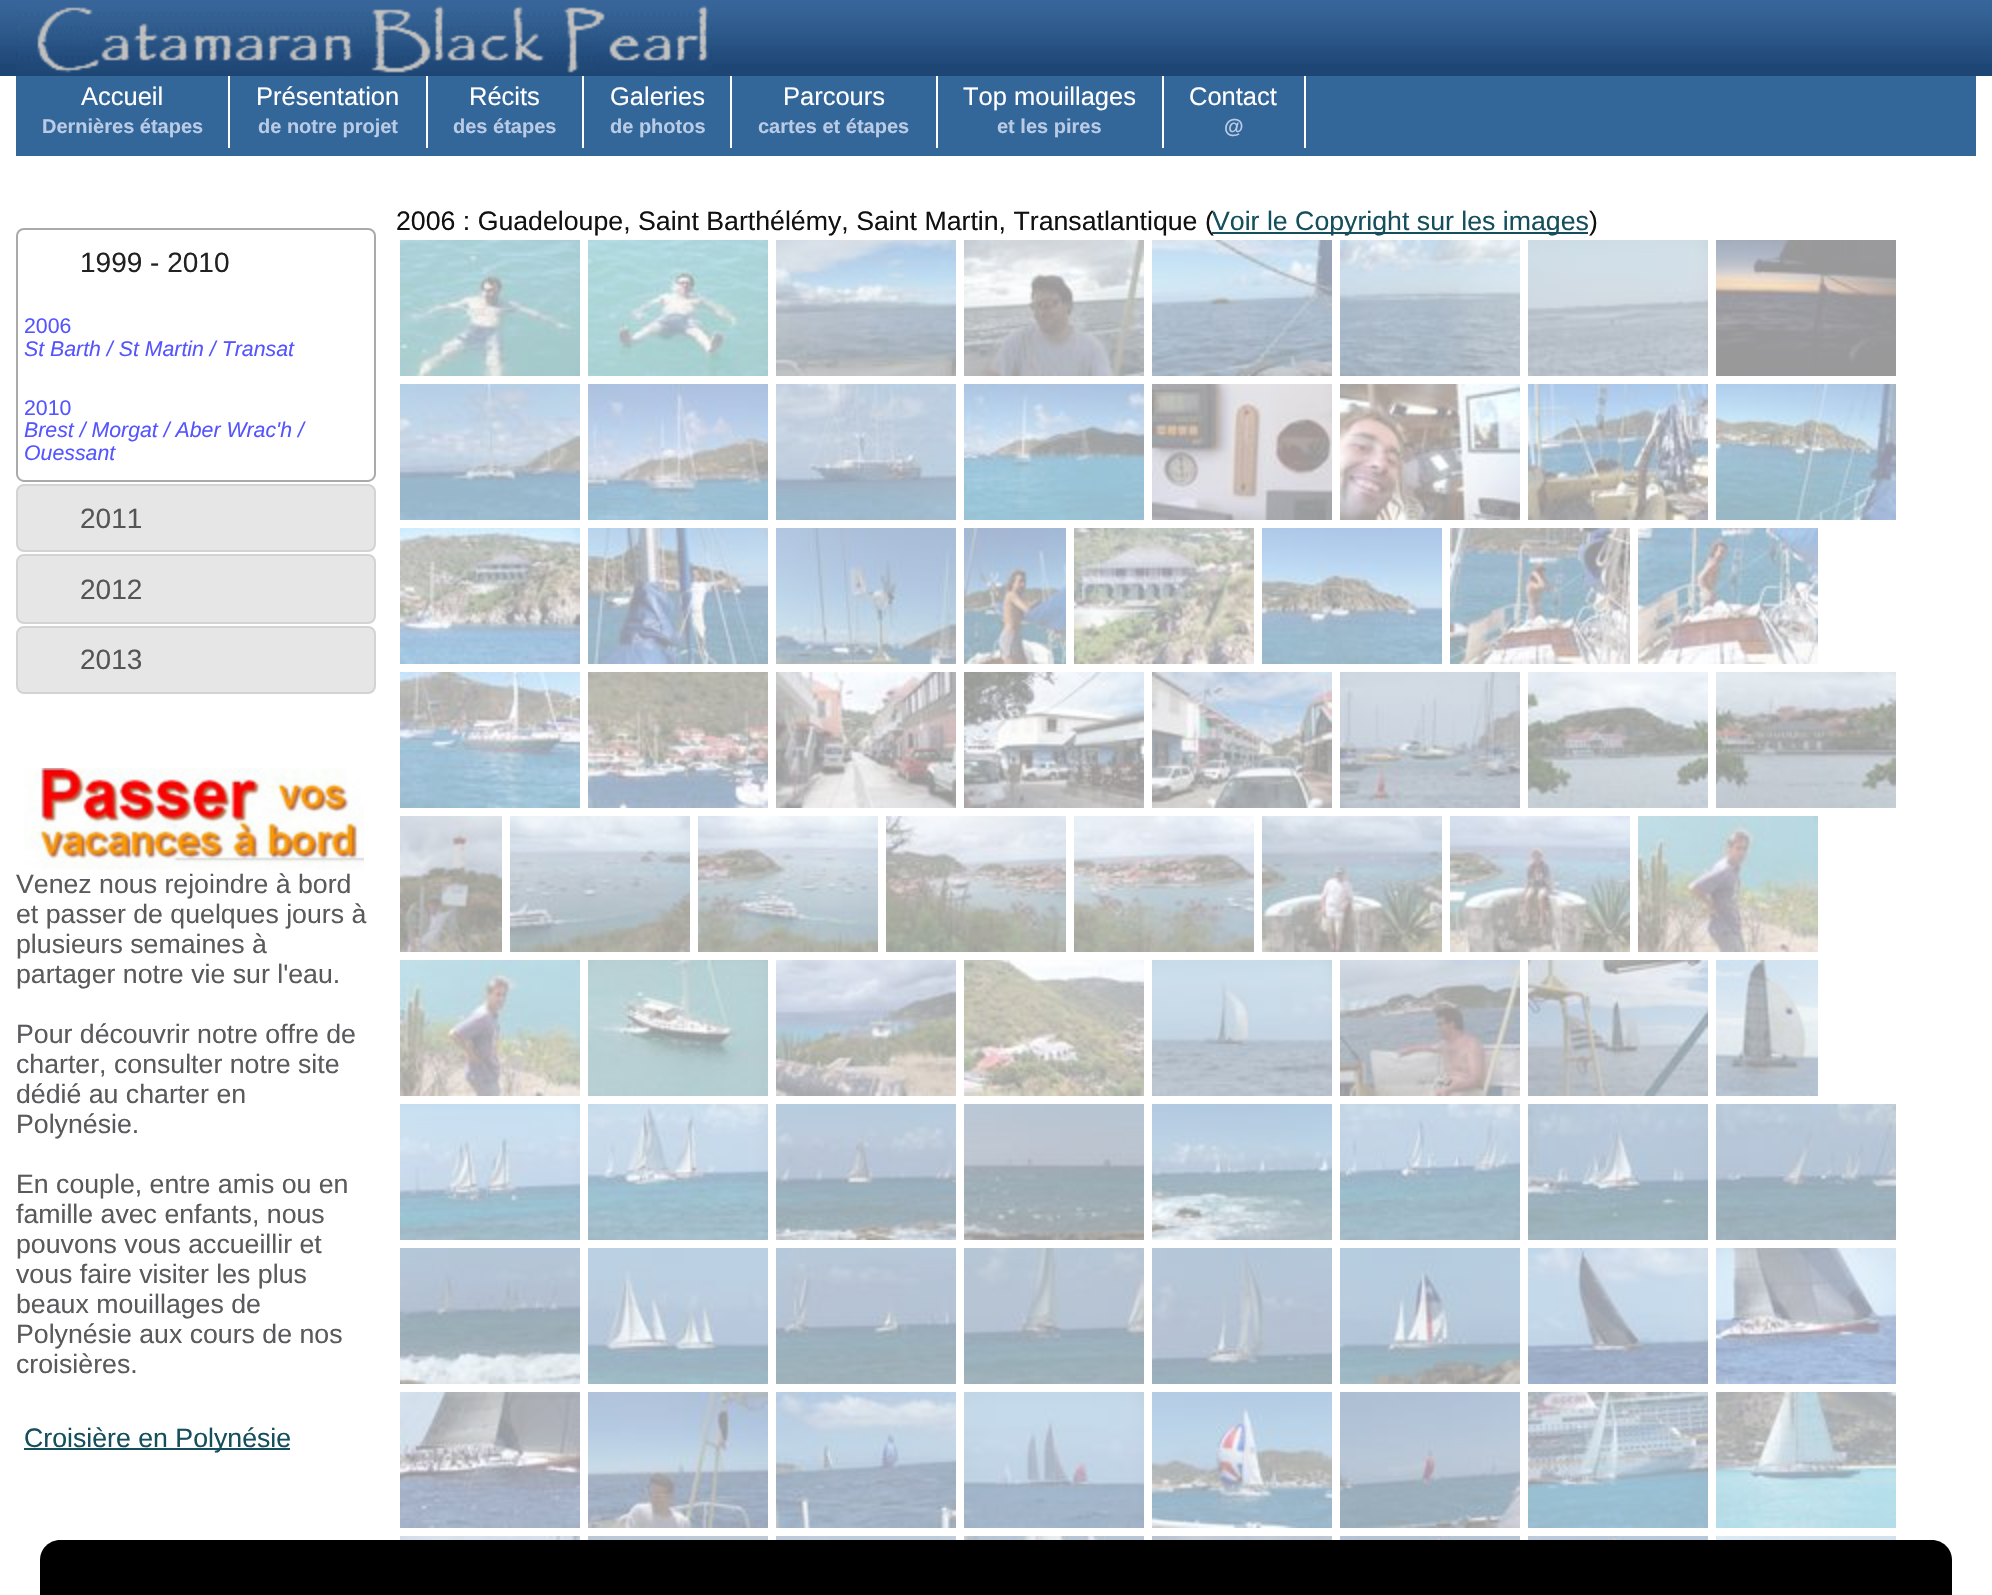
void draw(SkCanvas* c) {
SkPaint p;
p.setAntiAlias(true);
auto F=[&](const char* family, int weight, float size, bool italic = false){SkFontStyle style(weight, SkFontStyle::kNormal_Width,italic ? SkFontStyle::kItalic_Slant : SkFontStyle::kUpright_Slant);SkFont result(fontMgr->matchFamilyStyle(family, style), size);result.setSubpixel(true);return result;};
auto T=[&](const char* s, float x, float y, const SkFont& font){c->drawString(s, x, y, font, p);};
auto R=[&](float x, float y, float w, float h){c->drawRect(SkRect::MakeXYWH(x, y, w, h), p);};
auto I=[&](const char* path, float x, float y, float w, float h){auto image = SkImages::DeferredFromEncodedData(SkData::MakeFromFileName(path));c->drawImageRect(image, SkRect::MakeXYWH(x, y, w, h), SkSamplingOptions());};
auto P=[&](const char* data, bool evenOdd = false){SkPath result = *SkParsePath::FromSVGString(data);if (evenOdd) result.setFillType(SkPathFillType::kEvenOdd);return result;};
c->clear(0xffffffff);
p.setColor(0xff1d4674);
R(0,64,1992,12);
I("1.png",0,0,1992,64);
I("2.png",16,5,696,68);
p.setColor(0xff336699);
R(16,76,1960,80);
p.setColor(0xffffffff);
R(228,76,2,72);
auto f1 = F("Liberation Sans",400,25.5);
T("Accueil",81,105,f1);
auto f2 = F("Liberation Sans",700,20);
p.setColor(0xffbacbe5);
T("Dernières étapes",42,133,f2);
p.setColor(0xffffffff);
R(426,76,2,72);
T("Présentation",256,105,f1);
p.setColor(0xffbacbe5);
T("de notre projet",258,133,f2);
p.setColor(0xffffffff);
R(582,76,2,72);
T("Récits",469,105,f1);
p.setColor(0xffbacbe5);
T("des étapes",453,133,f2);
p.setColor(0xffffffff);
R(730,76,2,72);
T("Galeries",610,105,f1);
p.setColor(0xffbacbe5);
T("de photos",610,133,f2);
p.setColor(0xffffffff);
R(936,76,2,72);
T("Parcours",783,105,f1);
p.setColor(0xffbacbe5);
T("cartes et étapes",758,133,f2);
p.setColor(0xffffffff);
R(1162,76,2,72);
T("Top mouillages",963,105,f1);
p.setColor(0xffbacbe5);
T("et les pires",997,133,f2);
p.setColor(0xffffffff);
R(1304,76,2,72);
T("Contact",1189,105,f1);
p.setColor(0xffbacbe5);
T("@",1224,133,f2);
auto f3 = F("Liberation Sans",400,26.7);
p.setColor(0xff111111);
T("2006 : Guadeloupe, Saint Barthélémy, Saint Martin, Transatlantique (",396,230,f3);
p.setColor(0xff154f5c);
R(1212,232,376,2);
T("Voir le Copyright sur les images",1212,230,f3);
p.setColor(0xff111111);
T(")",1589,230,f3);
I("3.png",400,240,180,136);
I("4.png",588,240,180,136);
I("5.png",776,240,180,136);
I("6.png",964,240,180,136);
I("7.png",1152,240,180,136);
I("8.png",1340,240,180,136);
I("9.png",1528,240,180,136);
I("10.png",1716,240,180,136);
I("11.png",400,384,180,136);
I("12.png",588,384,180,136);
I("13.png",776,384,180,136);
I("14.png",964,384,180,136);
I("15.png",1152,384,180,136);
I("16.png",1340,384,180,136);
I("17.png",1528,384,180,136);
I("18.png",1716,384,180,136);
I("19.png",400,528,180,136);
I("20.png",588,528,180,136);
I("21.png",776,528,180,136);
I("22.png",964,528,102,136);
I("23.png",1074,528,180,136);
I("24.png",1262,528,180,136);
I("25.png",1450,528,180,136);
I("26.png",1638,528,180,136);
I("27.png",400,672,180,136);
I("28.png",588,672,180,136);
I("29.png",776,672,180,136);
I("30.png",964,672,180,136);
I("31.png",1152,672,180,136);
I("32.png",1340,672,180,136);
I("33.png",1528,672,180,136);
I("34.png",1716,672,180,136);
I("35.png",400,816,102,136);
I("36.png",510,816,180,136);
I("37.png",698,816,180,136);
I("38.png",886,816,180,136);
I("39.png",1074,816,180,136);
I("40.png",1262,816,180,136);
I("41.png",1450,816,180,136);
I("42.png",1638,816,180,136);
I("43.png",400,960,180,136);
I("44.png",588,960,180,136);
I("45.png",776,960,180,136);
I("46.png",964,960,180,136);
I("47.png",1152,960,180,136);
I("48.png",1340,960,180,136);
I("49.png",1528,960,180,136);
I("50.png",1716,960,102,136);
I("51.png",400,1104,180,136);
I("52.png",588,1104,180,136);
I("53.png",776,1104,180,136);
I("54.png",964,1104,180,136);
I("55.png",1152,1104,180,136);
I("56.png",1340,1104,180,136);
I("57.png",1528,1104,180,136);
I("58.png",1716,1104,180,136);
I("59.png",400,1248,180,136);
I("60.png",588,1248,180,136);
I("61.png",776,1248,180,136);
I("62.png",964,1248,180,136);
I("63.png",1152,1248,180,136);
I("64.png",1340,1248,180,136);
I("65.png",1528,1248,180,136);
I("66.png",1716,1248,180,136);
I("67.png",400,1392,180,136);
I("68.png",588,1392,180,136);
I("69.png",776,1392,180,136);
I("70.png",964,1392,180,136);
I("71.png",1152,1392,180,136);
I("72.png",1340,1392,180,136);
I("73.png",1528,1392,180,136);
I("74.png",1716,1392,180,136);
I("75.png",400,1536,180,4);
I("76.png",588,1536,180,4);
I("77.png",776,1536,180,4);
I("78.png",964,1536,180,4);
I("79.png",1152,1536,180,4);
I("80.png",1340,1536,180,4);
I("81.png",1528,1536,180,4);
I("82.png",1716,1536,180,4);
p.setColor(0xff000000);
c->drawPath(P("M60 1540h1872c11 0 20 9 20 20v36h-1912v-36c0-11 9-20 20-20z"),p);
p.setStroke(true);
p.setStrokeWidth(2);
p.setColor(0xffaaaaaa);
c->drawPath(P("M24 229h344c4 0 7 3 7 7v59h-358v-59c0-4 3-7 7-7z"),p);
auto f4 = F("Liberation Sans",400,28);
p.setStroke(false);
p.setColor(0xff212121);
T("1999 - 2010",80,272,f4);
p.setColor(0xffffffff);
c->drawPath(P("M16 294h360v180c0 4.5-3.5 8-8 8h-344c-4.5 0-8-3.5-8-8z"),p);
p.setColor(0xffaaaaaa);
c->drawPath(P("M16 294h360v180c0 4-4 8-8 8h-344c-4 0-8-4-8-8zm2 0h356v180c0 3-3 6-6 6h-344c-3 0-6-3-6-6z",true),p);
auto f5 = F("Liberation Sans",400,21.3);
p.setColor(0xff5555ff);
T("2006",24,333,f5);
auto f6 = F("Liberation Sans",400,21.3,true);
T("St Barth / St Martin / Transat",24,356,f6);
T("2010",24,415,f5);
T("Brest / Morgat / Aber Wrac'h /",24,437,f6);
T("Ouessant",24,460,f6);
p.setColor(0xffe6e6e6);
c->drawRoundRect(SkRect::MakeXYWH(17,485,358,66),7,7,p);
p.setStroke(true);
p.setColor(0xffd3d3d3);
c->drawRoundRect(SkRect::MakeXYWH(17,485,358,66),7,7,p);
p.setStroke(false);
p.setColor(0xff555555);
T("2011",80,528,f4);
p.setColor(0xffe6e6e6);
c->drawRoundRect(SkRect::MakeXYWH(17,555,358,68),7,7,p);
p.setStroke(true);
p.setColor(0xffd3d3d3);
c->drawRoundRect(SkRect::MakeXYWH(17,555,358,68),7,7,p);
p.setStroke(false);
p.setColor(0xff555555);
T("2012",80,599,f4);
p.setColor(0xffe6e6e6);
c->drawRoundRect(SkRect::MakeXYWH(17,627,358,66),7,7,p);
p.setStroke(true);
p.setColor(0xffd3d3d3);
c->drawRoundRect(SkRect::MakeXYWH(17,627,358,66),7,7,p);
p.setStroke(false);
p.setColor(0xff555555);
T("2013",80,669,f4);
I("83.png",24,768,340,102);
p.setColor(0xff5a5a5c);
T("Venez nous rejoindre à bord",16,893,f3);
T("et passer de quelques jours à",16,923,f3);
T("plusieurs semaines à",16,953,f3);
T("partager notre vie sur l'eau.",16,983,f3);
T("Pour découvrir notre offre de",16,1043,f3);
T("charter, consulter notre site",16,1073,f3);
T("dédié au charter en",16,1103,f3);
T("Polynésie.",16,1133,f3);
T("En couple, entre amis ou en",16,1193,f3);
T("famille avec enfants, nous",16,1223,f3);
T("pouvons vous accueillir et",16,1253,f3);
T("vous faire visiter les plus",16,1283,f3);
T("beaux mouillages de",16,1313,f3);
T("Polynésie aux cours de nos",16,1343,f3);
T("croisières.",16,1373,f3);
p.setColor(0xff154f5c);
R(24,1448,266,2);
T("Croisière en Polynésie",24,1447,f3);
}
